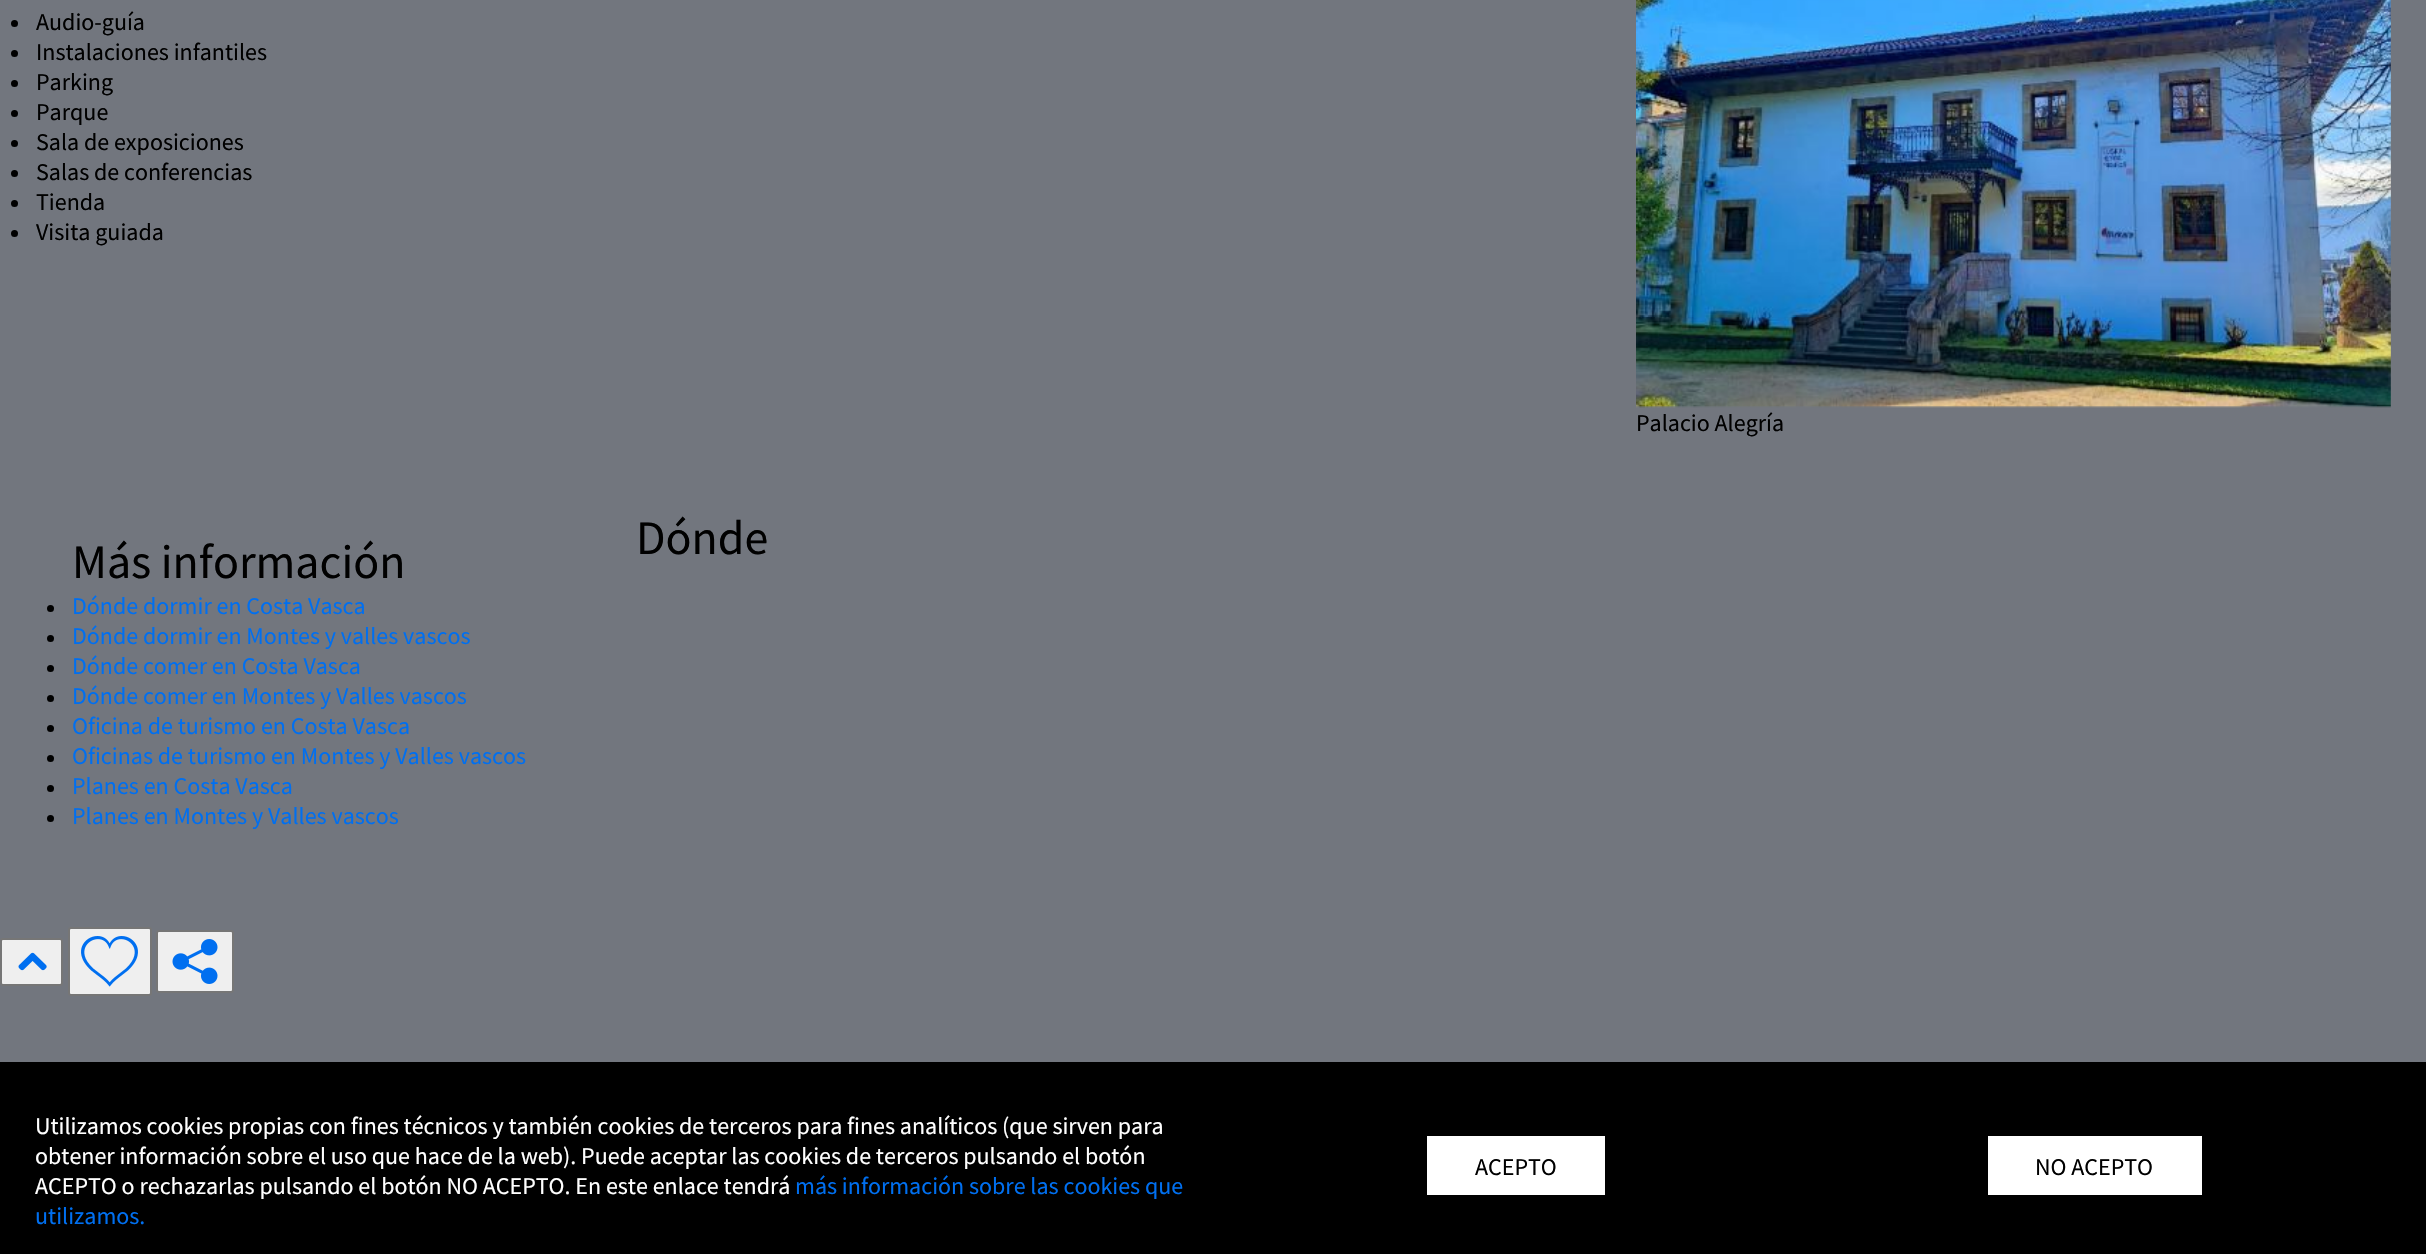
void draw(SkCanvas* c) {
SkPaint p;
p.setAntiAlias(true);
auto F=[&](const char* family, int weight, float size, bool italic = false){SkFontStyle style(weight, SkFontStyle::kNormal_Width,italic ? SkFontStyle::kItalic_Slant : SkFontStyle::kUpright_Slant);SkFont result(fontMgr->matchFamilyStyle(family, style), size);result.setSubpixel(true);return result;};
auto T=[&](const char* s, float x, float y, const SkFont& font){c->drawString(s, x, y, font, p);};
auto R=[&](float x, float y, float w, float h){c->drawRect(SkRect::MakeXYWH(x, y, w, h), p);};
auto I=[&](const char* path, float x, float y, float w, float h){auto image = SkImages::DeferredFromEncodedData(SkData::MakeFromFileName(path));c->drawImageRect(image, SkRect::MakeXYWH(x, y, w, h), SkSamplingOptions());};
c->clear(0xff72767e);
p.setColor(0xff000000);
c->drawCircle(14.5,23.5,3.5,p);
auto f1 = F("Source Sans Pro",400,24);
T("Audio-guía",36,30,f1);
c->drawCircle(14.5,53.5,3.5,p);
T("Instalaciones infantiles",36,60,f1);
c->drawCircle(14.5,83.5,3.5,p);
T("Parking",36,90,f1);
c->drawCircle(14.5,113.5,3.5,p);
T("Parque",36,120,f1);
c->drawCircle(14.5,143.5,3.5,p);
T("Sala de exposiciones",36,150,f1);
c->drawCircle(14.5,173.5,3.5,p);
T("Salas de conferencias",36,180,f1);
c->drawCircle(14.5,203.5,3.5,p);
T("Tienda",36,210,f1);
c->drawCircle(14.5,233.5,3.5,p);
T("Visita guiada",36,240,f1);
I("1.png",1636,0,755,408);
T("Palacio Alegría",1636,431,f1);
auto f2 = F("Source Sans Pro",400,48);
T("Dónde",636,554,f2);
T("Más información",72,578,f2);
c->drawCircle(50.5,608.5,3.5,p);
p.setColor(0xff006ff0);
T("Dónde dormir en Costa Vasca",72,614,f1);
p.setColor(0xff000000);
c->drawCircle(50.5,638.5,3.5,p);
p.setColor(0xff006ff0);
T("Dónde dormir en Montes y valles vascos",72,644,f1);
p.setColor(0xff000000);
c->drawCircle(50.5,668.5,3.5,p);
p.setColor(0xff006ff0);
T("Dónde comer en Costa Vasca",72,674,f1);
p.setColor(0xff000000);
c->drawCircle(50.5,698.5,3.5,p);
p.setColor(0xff006ff0);
T("Dónde comer en Montes y Valles vascos",72,704,f1);
p.setColor(0xff000000);
c->drawCircle(50.5,728.5,3.5,p);
p.setColor(0xff006ff0);
T("Oficina de turismo en Costa Vasca",72,734,f1);
p.setColor(0xff000000);
c->drawCircle(50.5,758.5,3.5,p);
p.setColor(0xff006ff0);
T("Oficinas de turismo en Montes y Valles vascos",72,764,f1);
p.setColor(0xff000000);
c->drawCircle(50.5,788.5,3.5,p);
p.setColor(0xff006ff0);
T("Planes en Costa Vasca",72,794,f1);
p.setColor(0xff000000);
c->drawCircle(50.5,818.5,3.5,p);
p.setColor(0xff006ff0);
T("Planes en Montes y Valles vascos",72,824,f1);
p.setColor(0xffefefef);
c->drawRoundRect(SkRect::MakeXYWH(1,939,61,46),2,2,p);
p.setStroke(true);
p.setStrokeWidth(2);
p.setColor(0xff767676);
c->drawRoundRect(SkRect::MakeXYWH(1,939,61,46),2,2,p);
I("2.png",18,952,29,19);
p.setStroke(false);
p.setColor(0xffefefef);
c->drawRoundRect(SkRect::MakeXYWH(69,928,82,67),2,2,p);
p.setStroke(true);
p.setColor(0xff767676);
c->drawRoundRect(SkRect::MakeXYWH(69,928,82,67),2,2,p);
I("3.png",81,936,57,51);
p.setStroke(false);
p.setColor(0xffefefef);
c->drawRoundRect(SkRect::MakeXYWH(157,931,76,61),2,2,p);
p.setStroke(true);
p.setColor(0xff767676);
c->drawRoundRect(SkRect::MakeXYWH(157,931,76,61),2,2,p);
I("4.png",172,939,46,45);
p.setStroke(false);
p.setColor(0xff000000);
R(0,1062,2426,192);
p.setColor(0xffffffff);
T("Utilizamos cookies propias con fines técnicos y también cookies de terceros para fines analíticos (que sirven para",35,1134,f1);
T("obtener información sobre el uso que hace de la web). Puede aceptar las cookies de terceros pulsando el botón",35,1164,f1);
T("ACEPTO o rechazarlas pulsando el botón NO ACEPTO. En este enlace tendrá",35,1194,f1);
p.setColor(0xff006ff0);
T("más información sobre las cookies que",795,1194,f1);
T("utilizamos.",35,1224,f1);
p.setColor(0xffffffff);
R(1427,1136,178,59);
p.setColor(0xff000000);
T("ACEPTO",1475,1175,f1);
p.setColor(0xffffffff);
R(1988,1136,214,59);
p.setColor(0xff000000);
T("NO ACEPTO",2035,1175,f1);
}
